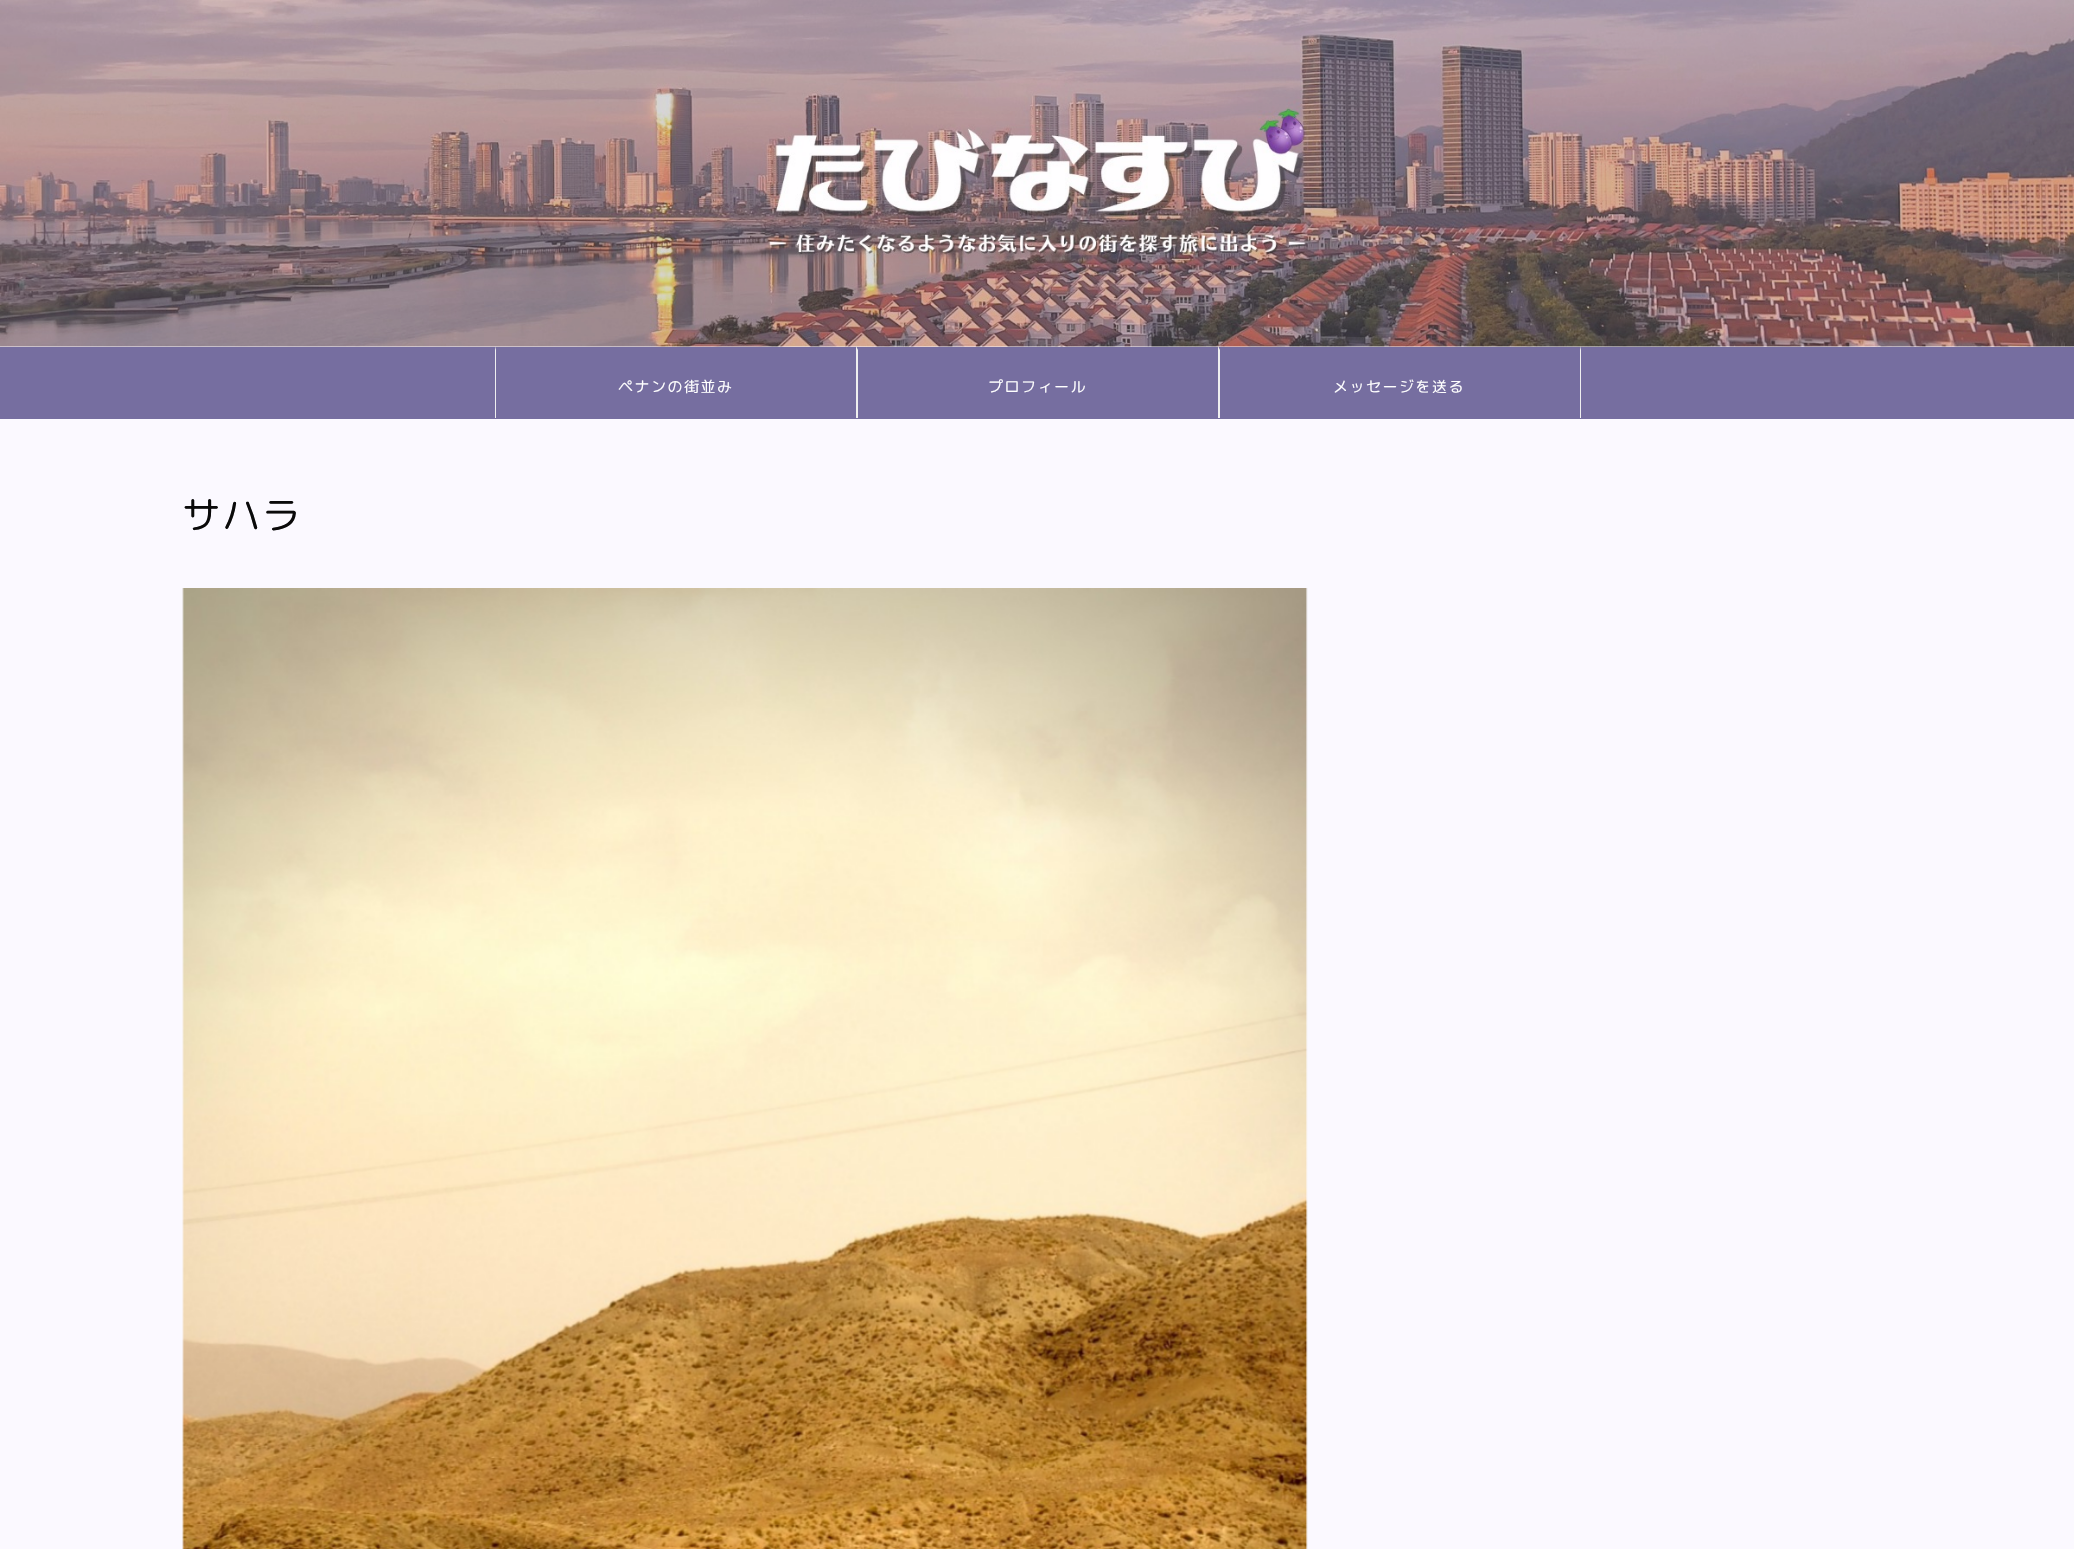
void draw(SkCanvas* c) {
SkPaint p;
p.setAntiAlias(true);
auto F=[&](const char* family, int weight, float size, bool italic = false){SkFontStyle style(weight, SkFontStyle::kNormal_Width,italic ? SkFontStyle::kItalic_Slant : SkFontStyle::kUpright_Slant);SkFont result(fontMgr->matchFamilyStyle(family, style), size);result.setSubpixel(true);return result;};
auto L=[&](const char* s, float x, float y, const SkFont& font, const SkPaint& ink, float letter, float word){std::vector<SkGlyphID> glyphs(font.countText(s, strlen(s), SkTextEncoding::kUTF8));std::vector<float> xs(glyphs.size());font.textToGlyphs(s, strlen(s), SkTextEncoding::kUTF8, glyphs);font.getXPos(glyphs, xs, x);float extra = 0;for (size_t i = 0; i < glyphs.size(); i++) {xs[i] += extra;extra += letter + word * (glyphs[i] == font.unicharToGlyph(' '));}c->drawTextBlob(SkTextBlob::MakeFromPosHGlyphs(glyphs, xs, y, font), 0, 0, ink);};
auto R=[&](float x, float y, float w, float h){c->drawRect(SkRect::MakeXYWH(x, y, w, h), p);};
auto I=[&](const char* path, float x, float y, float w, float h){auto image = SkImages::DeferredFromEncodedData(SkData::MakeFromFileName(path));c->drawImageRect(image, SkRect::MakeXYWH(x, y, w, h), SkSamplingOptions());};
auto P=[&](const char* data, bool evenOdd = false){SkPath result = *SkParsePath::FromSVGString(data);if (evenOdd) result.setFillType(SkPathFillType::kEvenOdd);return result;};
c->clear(0xfffbf9ff);
I("1.png",0,0,2074,347);
p.setColor(0xff766ea0);
R(0,347,2074,72);
p.setColor(0xffefefef);
c->drawPath(P("M495 418v-72l1 4v68z"),p);
auto f1 = F("Rounded Mplus 1c",400,15);
p.setColor(0xffffffff);
L("ペナンの街並み",618,392,f1,p,1.5,0);
p.setColor(0xffefefef);
c->drawPath(P("M856 418v-72l2 4v68z"),p);
p.setColor(0xffffffff);
L("プロフィール",988,392,f1,p,1.5,0);
p.setColor(0xffefefef);
c->drawPath(P("M1581 346v72h-1v-68z"),p);
c->drawPath(P("M1218 418v-72l2 4v68z"),p);
p.setColor(0xffffffff);
L("メッセージを送る",1333,392,f1,p,1.5,0);
auto f2 = F("Rounded Mplus 1c",400,38.5);
p.setColor(0xff0a0a0a);
L("サハラ",182,529,f2,p,1.5,0);
I("2.png",182,588,1126,961);
}
